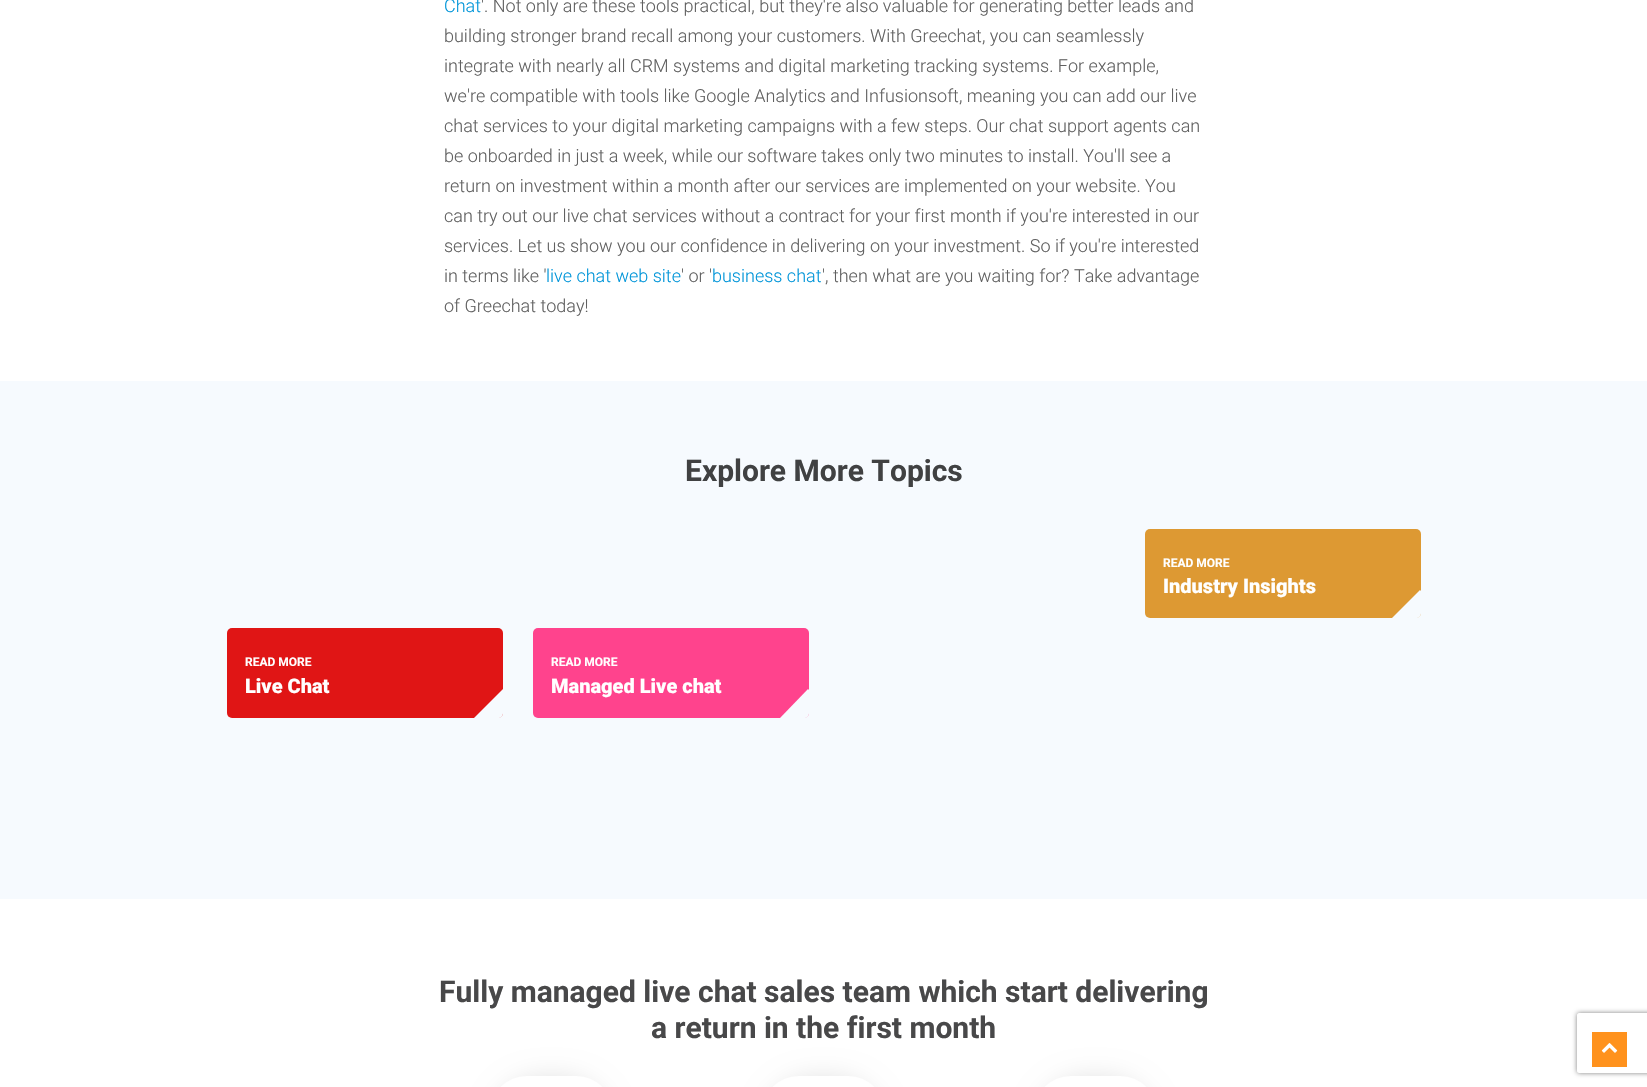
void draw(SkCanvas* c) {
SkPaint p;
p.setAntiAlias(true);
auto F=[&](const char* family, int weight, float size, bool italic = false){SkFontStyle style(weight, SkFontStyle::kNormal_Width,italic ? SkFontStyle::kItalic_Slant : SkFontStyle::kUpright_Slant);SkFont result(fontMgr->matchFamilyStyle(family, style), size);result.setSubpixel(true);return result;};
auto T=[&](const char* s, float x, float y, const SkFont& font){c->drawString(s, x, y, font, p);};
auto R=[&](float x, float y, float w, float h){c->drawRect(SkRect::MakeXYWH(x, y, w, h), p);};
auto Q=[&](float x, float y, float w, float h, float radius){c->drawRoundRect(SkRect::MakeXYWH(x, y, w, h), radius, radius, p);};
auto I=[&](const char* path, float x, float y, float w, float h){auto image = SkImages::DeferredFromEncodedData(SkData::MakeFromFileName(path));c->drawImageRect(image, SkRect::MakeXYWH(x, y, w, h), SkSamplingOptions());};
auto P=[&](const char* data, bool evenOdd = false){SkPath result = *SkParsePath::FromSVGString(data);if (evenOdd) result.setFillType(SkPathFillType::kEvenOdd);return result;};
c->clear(0xffffffff);
auto f1 = F("Roboto",300,18);
p.setColor(0xff0095d9);
T("Chat",444,12,f1);
p.setColor(0xff606060);
T("'. Not only are these tools practical, but they're also valuable for generating better leads and",481,12,f1);
T("building stronger brand recall among your customers. With Greechat, you can seamlessly",444,42,f1);
T("integrate with nearly all CRM systems and digital marketing tracking systems. For example,",444,72,f1);
T("we're compatible with tools like Google Analytics and Infusionsoft, meaning you can add our live",444,102,f1);
T("chat services to your digital marketing campaigns with a few steps. Our chat support agents can",444,132,f1);
T("be onboarded in just a week, while our software takes only two minutes to install. You'll see a",444,162,f1);
T("return on investment within a month after our services are implemented on your website. You",444,192,f1);
T("can try out our live chat services without a contract for your first month if you're interested in our",444,222,f1);
T("services. Let us show you our confidence in delivering on your investment. So if you're interested",444,252,f1);
T("in terms like '",444,282,f1);
p.setColor(0xff0095d9);
T("live chat web site",546,282,f1);
p.setColor(0xff606060);
T("' or '",681,282,f1);
p.setColor(0xff0095d9);
T("business chat",712,282,f1);
p.setColor(0xff606060);
T("', then what are you waiting for? Take advantage",822,282,f1);
T("of Greechat today!",444,312,f1);
p.setColor(0xfff6fafe);
R(0,381,1647,518);
auto f2 = F("Roboto",700,30);
p.setColor(0xff404142);
T("Explore More Topics",685,481,f2);
p.setColor(0xffdd9933);
Q(1145,529,276,89,5);
auto f3 = F("Roboto",700,12);
p.setColor(0xffffffff);
T("READ MORE",1163,567,f3);
auto f4 = F("Roboto",900,20);
T("Industry Insights",1163,593,f4);
p.setColor(0xfff6fafe);
c->drawPath(P("M1420 590l1 1v22c0 3-2 5-5 5h-24z"),p);
p.setColor(0xffe01515);
Q(227,628,276,90,5);
p.setColor(0xffffffff);
T("READ MORE",245,666,f3);
T("Live Chat",245,693,f4);
p.setColor(0xfff6fafe);
c->drawPath(P("M503 689l-29 29h24c3 0 5-2 5-5z"),p);
p.setColor(0xffff438d);
Q(533,628,276,90,5);
p.setColor(0xffffffff);
T("READ MORE",551,666,f3);
T("Managed Live chat",551,693,f4);
p.setColor(0xfff6fafe);
c->drawPath(P("M808 689l1 1v23c0 3-2 5-5 5h-24z"),p);
p.setColor(0xff484849);
T("Fully managed live chat sales team which start delivering",439,1002,f2);
T("a return in the first month",651,1038,f2);
p.setColor(0x1a000000);
p.setMaskFilter(SkMaskFilter::MakeBlur(kNormal_SkBlurStyle, 12.5));
c->drawRoundRect(SkRect::MakeXYWH(490,1076,123,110),61.5,61.5,p);
p.setMaskFilter(nullptr);
p.setColor(0xffffffff);
Q(490,1076,123,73,61.5);
p.setColor(0x1a000000);
p.setMaskFilter(SkMaskFilter::MakeBlur(kNormal_SkBlurStyle, 12.5));
c->drawRoundRect(SkRect::MakeXYWH(762,1076,123,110),61.5,61.5,p);
p.setMaskFilter(nullptr);
p.setColor(0xffffffff);
Q(762,1076,123,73,61.5);
p.setColor(0x1a000000);
p.setMaskFilter(SkMaskFilter::MakeBlur(kNormal_SkBlurStyle, 12.5));
c->drawRoundRect(SkRect::MakeXYWH(1034,1076,123,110),61.5,61.5,p);
p.setMaskFilter(nullptr);
p.setColor(0xffffffff);
Q(1034,1076,123,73,61.5);
p.setColor(0xffff921d);
R(1592,1032,35,35);
I("1.png",1601,1043,17,10);
c->save();
c->clipPath(P("M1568 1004h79v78h-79zm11 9h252c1 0 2 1 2 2v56c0 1-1 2-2 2h-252c-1 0-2-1-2-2v-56c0-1 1-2 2-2z",true),true);
p.setColor(0xff808080);
p.setMaskFilter(SkMaskFilter::MakeBlur(kNormal_SkBlurStyle, 2.5));
c->drawRoundRect(SkRect::MakeXYWH(1577,1013,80,60),2,2,p);
p.setMaskFilter(nullptr);
c->restore();
}
